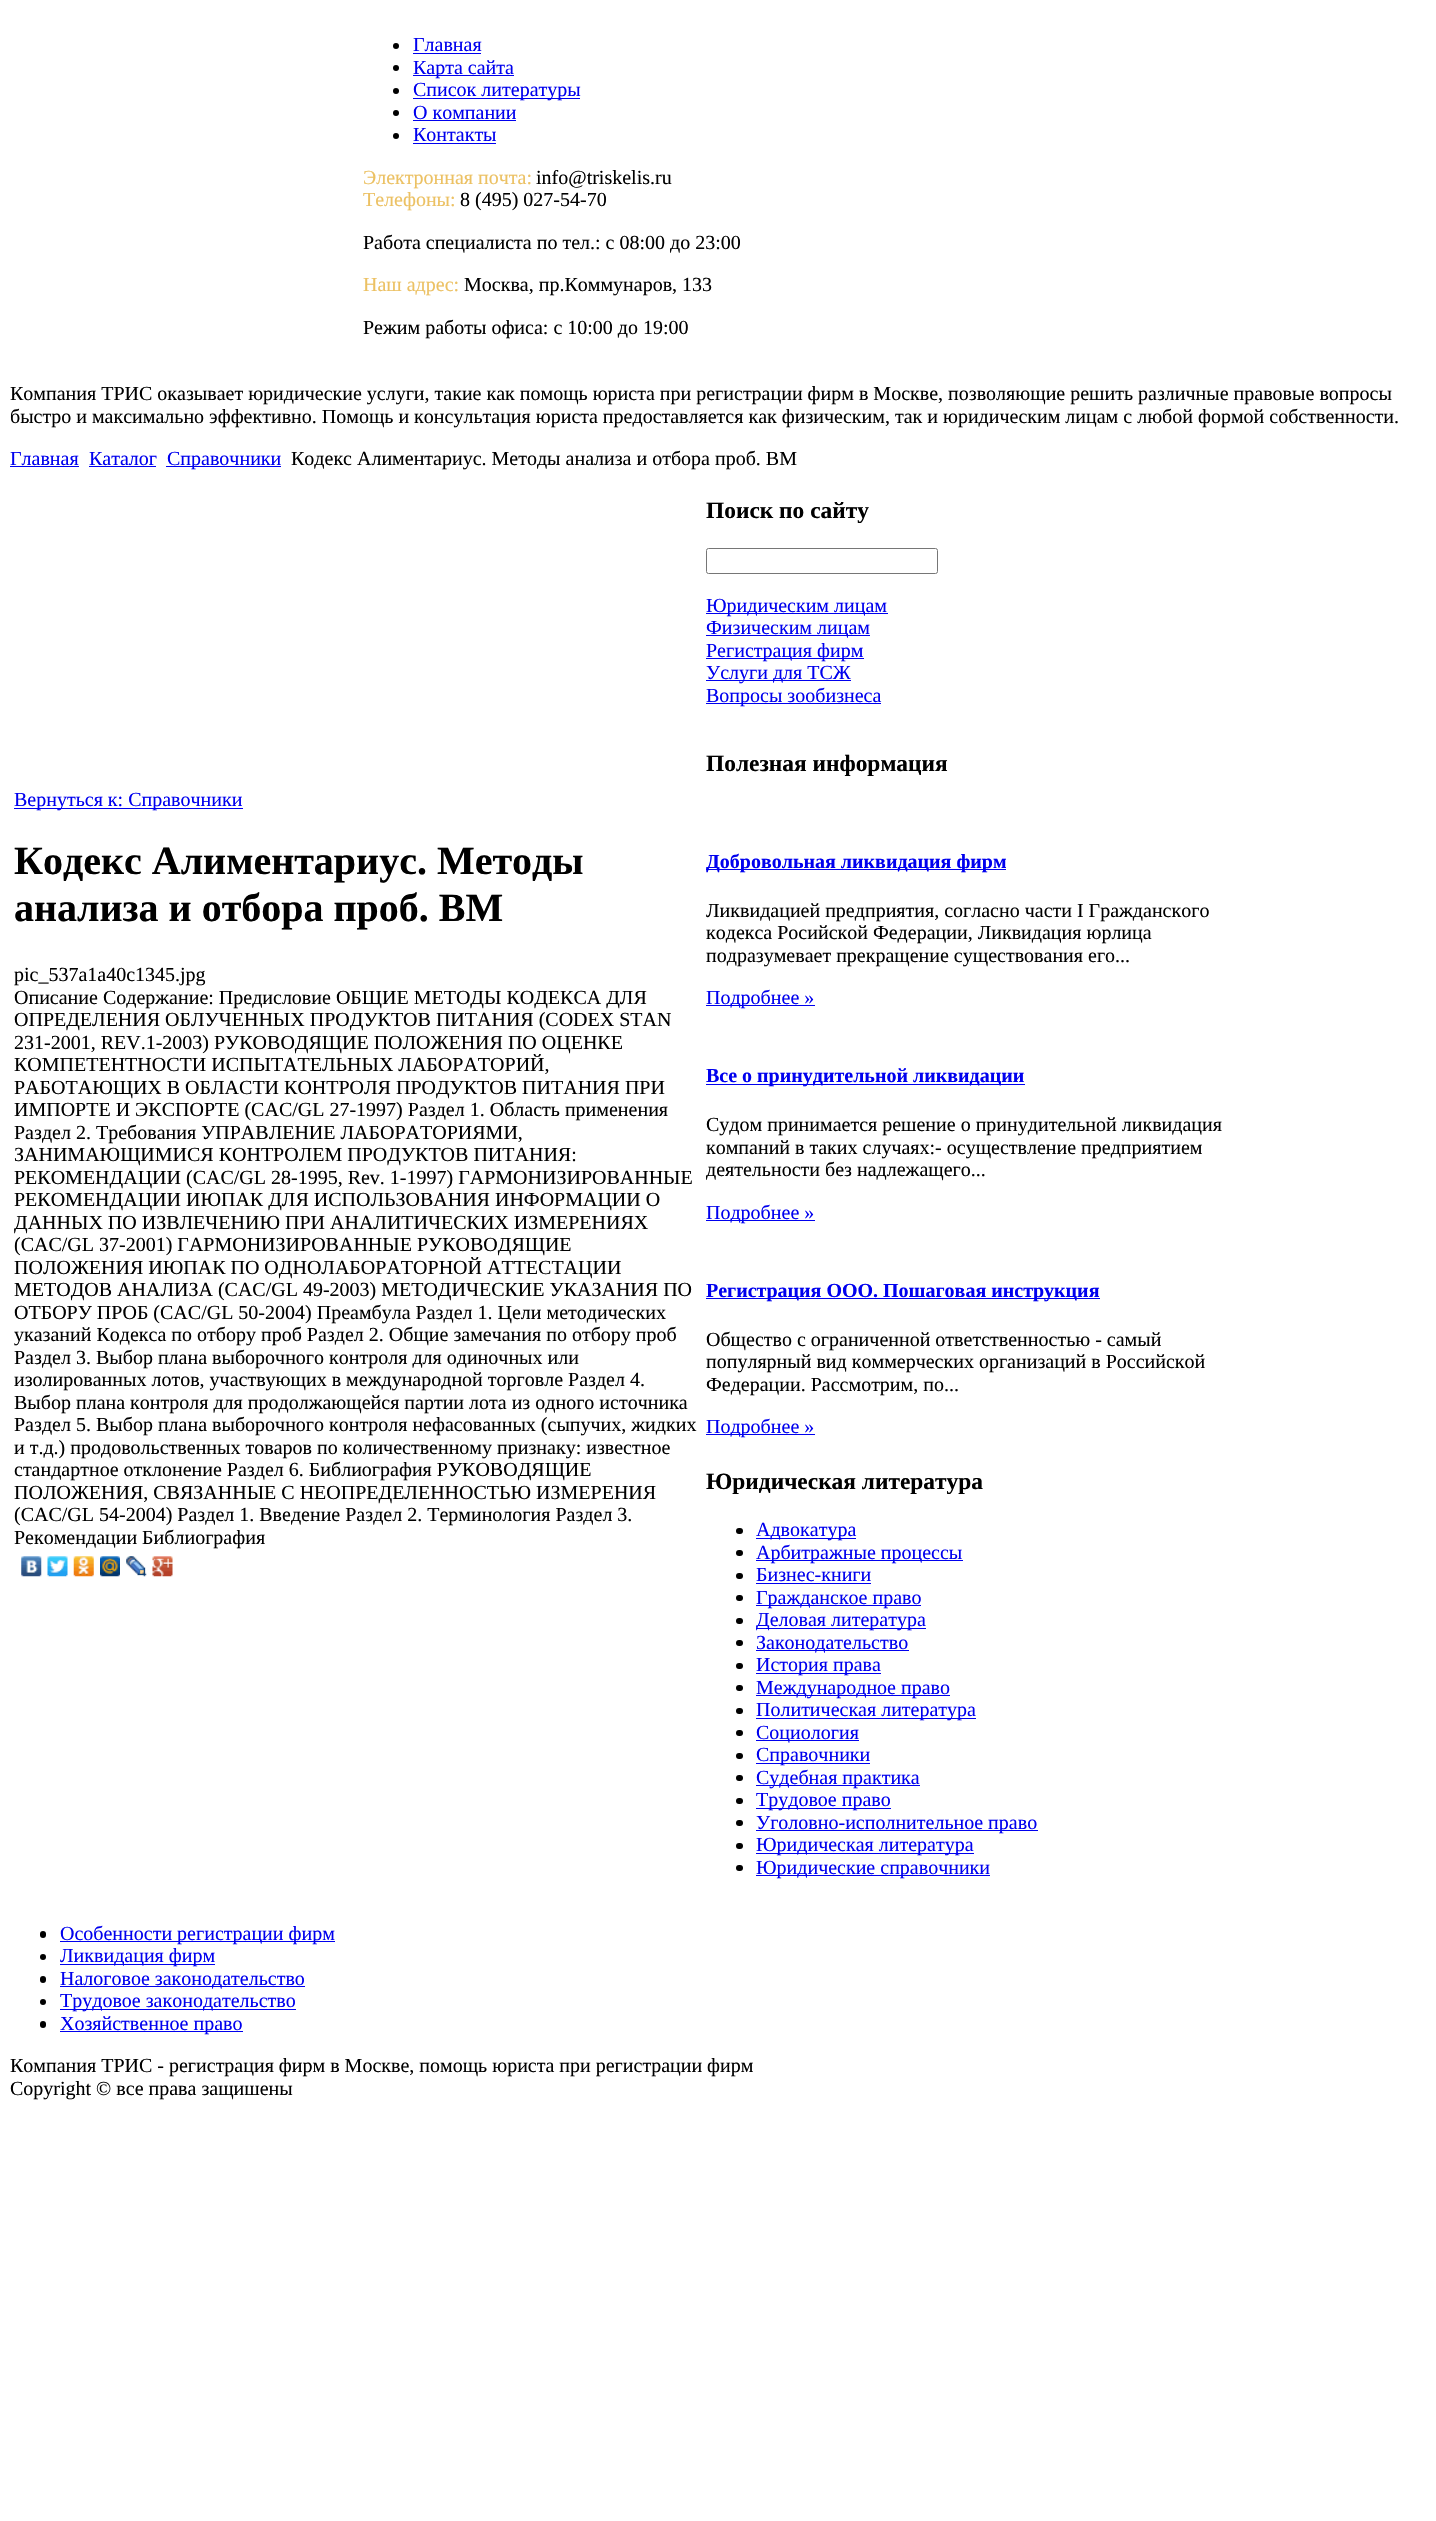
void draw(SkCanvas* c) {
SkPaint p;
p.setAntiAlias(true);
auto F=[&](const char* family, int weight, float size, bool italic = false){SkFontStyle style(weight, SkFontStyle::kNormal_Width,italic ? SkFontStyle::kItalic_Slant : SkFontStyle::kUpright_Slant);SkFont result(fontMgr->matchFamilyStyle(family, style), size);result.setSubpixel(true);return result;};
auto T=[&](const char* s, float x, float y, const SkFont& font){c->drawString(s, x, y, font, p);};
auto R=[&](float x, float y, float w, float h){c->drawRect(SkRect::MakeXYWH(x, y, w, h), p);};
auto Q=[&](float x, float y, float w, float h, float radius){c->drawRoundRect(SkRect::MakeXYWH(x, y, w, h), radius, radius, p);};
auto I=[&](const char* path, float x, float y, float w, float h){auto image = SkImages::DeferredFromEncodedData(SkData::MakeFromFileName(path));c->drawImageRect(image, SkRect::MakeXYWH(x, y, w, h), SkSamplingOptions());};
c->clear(0xffffffff);
p.setColor(0xff000000);
c->drawCircle(396,46,3,p);
auto f1 = F("Liberation Serif",400,20);
p.setColor(0xff0000ee);
T("Главная",413,51,f1);
R(413,53,68,1);
p.setColor(0xff000000);
c->drawCircle(396,68,3,p);
p.setColor(0xff0000ee);
R(413,75,101,1);
T("Карта сайта",413,74,f1);
p.setColor(0xff000000);
c->drawCircle(396,91,3,p);
p.setColor(0xff0000ee);
R(413,98,167,1);
T("Список литературы",413,96,f1);
p.setColor(0xff000000);
c->drawCircle(396,113,3,p);
p.setColor(0xff0000ee);
T("О компании",413,119,f1);
R(413,120,103,1);
p.setColor(0xff000000);
c->drawCircle(396,136,3,p);
p.setColor(0xff0000ee);
T("Контакты",413,141,f1);
R(413,143,83,1);
p.setColor(0xffecc163);
T("Электронная почта:",363,184,f1);
p.setColor(0xff000000);
T("info@triskelis.ru",536,184,f1);
p.setColor(0xffecc163);
T("Телефоны:",363,206,f1);
p.setColor(0xff000000);
T("8 (495) 027-54-70",460,206,f1);
T("Работа специалиста по тел.: с 08:00 до 23:00",363,249,f1);
p.setColor(0xffecc163);
T("Наш адрес:",363,291,f1);
p.setColor(0xff000000);
T("Москва, пр.Коммунаров, 133",464,291,f1);
T("Режим работы офиса: с 10:00 до 19:00",363,334,f1);
T("Компания ТРИС оказывает юридические услуги, такие как помощь юриста при регистрации фирм в Москве, позволяющие решить различные правовые вопросы",10,400,f1);
T("быстро и максимально эффективно. Помощь и консультация юриста предоставляется как физическим, так и юридическим лицам с любой формой собственности.",10,423,f1);
p.setColor(0xff0000ee);
T("Главная",10,465,f1);
R(10,466,69,1);
T("Каталог",89,465,f1);
R(89,466,67,1);
R(166,466,115,1);
T("Справочники",167,465,f1);
p.setColor(0xff000000);
T("Кодекс Алиментариус. Методы анализа и отбора проб. ВМ",291,465,f1);
p.setColor(0xff0000ee);
R(14,808,229,1);
T("Вернуться к: Справочники",14,806,f1);
auto f2 = F("Liberation Serif",700,40);
p.setColor(0xff000000);
T("Кодекс Алиментариус. Методы",14,874,f2);
T("анализа и отбора проб. ВМ",14,921,f2);
T("pic_537a1a40c1345.jpg",14,981,f1);
T("Описание Содержание: Предисловие ОБЩИЕ МЕТОДЫ КОДЕКСА ДЛЯ",14,1004,f1);
T("ОПРЕДЕЛЕНИЯ ОБЛУЧЕННЫХ ПРОДУКТОВ ПИТАНИЯ (CODEX STAN",14,1026,f1);
T("231-2001, REV.1-2003) РУКОВОДЯЩИЕ ПОЛОЖЕНИЯ ПО ОЦЕНКЕ",14,1049,f1);
T("КОМПЕТЕНТНОСТИ ИСПЫТАТЕЛЬНЫХ ЛАБОРАТОРИЙ,",14,1071,f1);
T("РАБОТАЮЩИХ В ОБЛАСТИ КОНТРОЛЯ ПРОДУКТОВ ПИТАНИЯ ПРИ",14,1094,f1);
T("ИМПОРТЕ И ЭКСПОРТЕ (CAC/GL 27-1997) Раздел 1. Область применения",14,1116,f1);
T("Раздел 2. Требования УПРАВЛЕНИЕ ЛАБОРАТОРИЯМИ,",14,1139,f1);
T("ЗАНИМАЮЩИМИСЯ КОНТРОЛЕМ ПРОДУКТОВ ПИТАНИЯ:",14,1161,f1);
T("РЕКОМЕНДАЦИИ (CAC/GL 28-1995, Rev. 1-1997) ГАРМОНИЗИРОВАННЫЕ",14,1184,f1);
T("РЕКОМЕНДАЦИИ ИЮПАК ДЛЯ ИСПОЛЬЗОВАНИЯ ИНФОРМАЦИИ О",14,1206,f1);
T("ДАННЫХ ПО ИЗВЛЕЧЕНИЮ ПРИ АНАЛИТИЧЕСКИХ ИЗМЕРЕНИЯХ",14,1229,f1);
T("(CAC/GL 37-2001) ГАРМОНИЗИРОВАННЫЕ РУКОВОДЯЩИЕ",14,1251,f1);
T("ПОЛОЖЕНИЯ ИЮПАК ПО ОДНОЛАБОРАТОРНОЙ АТТЕСТАЦИИ",14,1274,f1);
T("МЕТОДОВ АНАЛИЗА (CAC/GL 49-2003) МЕТОДИЧЕСКИЕ УКАЗАНИЯ ПО",14,1296,f1);
T("ОТБОРУ ПРОБ (CAC/GL 50-2004) Преамбула Раздел 1. Цели методических",14,1319,f1);
T("указаний Кодекса по отбору проб Раздел 2. Общие замечания по отбору проб",14,1341,f1);
T("Раздел 3. Выбор плана выборочного контроля для одиночных или",14,1364,f1);
T("изолированных лотов, участвующих в международной торговле Раздел 4.",14,1386,f1);
T("Выбор плана контроля для продолжающейся партии лота из одного источника",14,1409,f1);
T("Раздел 5. Выбор плана выборочного контроля нефасованных (сыпучих, жидких",14,1431,f1);
T("и т.д.) продовольственных товаров по количественному признаку: известное",14,1454,f1);
T("стандартное отклонение Раздел 6. Библиография РУКОВОДЯЩИЕ",14,1476,f1);
T("ПОЛОЖЕНИЯ, СВЯЗАННЫЕ С НЕОПРЕДЕЛЕННОСТЬЮ ИЗМЕРЕНИЯ",14,1499,f1);
T("(CAC/GL 54-2004) Раздел 1. Введение Раздел 2. Терминология Раздел 3.",14,1521,f1);
T("Рекомендации Библиография",14,1544,f1);
I("1.png",21,1556,21,21);
I("2.png",47,1556,21,21);
I("3.png",73,1556,21,21);
I("4.png",100,1556,20,21);
I("5.png",126,1556,21,21);
I("6.png",152,1556,21,21);
auto f3 = F("Liberation Serif",700,23.4);
T("Поиск по сайту",706,518,f3);
p.setStroke(true);
p.setStrokeWidth(1);
p.setColor(0xff767676);
c->drawRoundRect(SkRect::MakeXYWH(706.5,548.5,231,25),2,2,p);
p.setStroke(false);
p.setColor(0xff0000ee);
R(706,613,182,1);
T("Юридическим лицам",706,612,f1);
R(706,635,164,1);
T("Физическим лицам",706,634,f1);
R(706,658,158,1);
T("Регистрация фирм",706,657,f1);
R(706,680,145,1);
T("Услуги для ТСЖ",706,679,f1);
R(706,703,175,1);
T("Вопросы зообизнеса",706,702,f1);
p.setColor(0xff000000);
T("Полезная информация",706,771,f3);
p.setColor(0xff0000ee);
R(706,869,300,1);
auto f4 = F("Liberation Serif",700,20);
T("Добровольная ликвидация фирм",706,868,f4);
p.setColor(0xff000000);
T("Ликвидацией предприятия, согласно части I Гражданского",706,917,f1);
T("кодекса Росийской Федерации, Ликвидация юрлица",706,939,f1);
T("подразумевает прекращение существования его...",706,962,f1);
p.setColor(0xff0000ee);
R(706,1005,109,1);
T("Подробнее »",706,1004,f1);
R(706,1084,319,1);
T("Все о принудительной ликвидации",706,1082,f4);
p.setColor(0xff000000);
T("Судом принимается решение о принудительной ликвидация",706,1131,f1);
T("компаний в таких случаях:- осуществление предприятием",706,1154,f1);
T("деятельности без надлежащего...",706,1176,f1);
p.setColor(0xff0000ee);
R(706,1220,109,1);
T("Подробнее »",706,1219,f1);
R(706,1298,394,1);
T("Регистрация ООО. Пошаговая инструкция",706,1297,f4);
p.setColor(0xff000000);
T("Общество с ограниченной ответственностью - самый",706,1346,f1);
T("популярный вид коммерческих организаций в Российской",706,1368,f1);
T("Федерации. Рассмотрим, по...",706,1391,f1);
p.setColor(0xff0000ee);
R(706,1434,109,1);
T("Подробнее »",706,1433,f1);
p.setColor(0xff000000);
T("Юридическая литература",706,1489,f3);
Q(736,1528,7,6,3);
p.setColor(0xff0000ee);
R(756,1538,100,1);
T("Адвокатура",756,1536,f1);
p.setColor(0xff000000);
Q(736,1550,7,6,3);
p.setColor(0xff0000ee);
R(756,1560,207,1);
T("Арбитражные процессы",756,1559,f1);
p.setColor(0xff000000);
Q(736,1573,7,6,3);
p.setColor(0xff0000ee);
T("Бизнес-книги",756,1581,f1);
R(756,1583,115,1);
p.setColor(0xff000000);
Q(736,1595,7,6,3);
p.setColor(0xff0000ee);
R(756,1605,165,1);
T("Гражданское право",756,1604,f1);
p.setColor(0xff000000);
Q(736,1618,7,6,3);
p.setColor(0xff0000ee);
R(756,1628,170,1);
T("Деловая литература",756,1626,f1);
p.setColor(0xff000000);
Q(736,1640,7,6,3);
p.setColor(0xff0000ee);
R(756,1650,153,1);
T("Законодательство",756,1649,f1);
p.setColor(0xff000000);
Q(736,1663,7,6,3);
p.setColor(0xff0000ee);
R(756,1673,125,1);
T("История права",756,1671,f1);
p.setColor(0xff000000);
Q(736,1685,7,6,3);
p.setColor(0xff0000ee);
R(756,1695,194,1);
T("Международное право",756,1694,f1);
p.setColor(0xff000000);
Q(736,1708,7,6,3);
p.setColor(0xff0000ee);
R(756,1718,220,1);
T("Политическая литература",756,1716,f1);
p.setColor(0xff000000);
Q(736,1730,7,6,3);
p.setColor(0xff0000ee);
R(756,1740,103,1);
T("Социология",756,1739,f1);
p.setColor(0xff000000);
Q(736,1753,7,6,3);
p.setColor(0xff0000ee);
R(756,1763,114,1);
T("Справочники",756,1761,f1);
p.setColor(0xff000000);
Q(736,1775,7,6,3);
p.setColor(0xff0000ee);
R(756,1785,164,1);
T("Судебная практика",756,1784,f1);
p.setColor(0xff000000);
Q(736,1798,7,6,3);
p.setColor(0xff0000ee);
R(756,1808,135,1);
T("Трудовое право",756,1806,f1);
p.setColor(0xff000000);
Q(736,1820,7,6,3);
p.setColor(0xff0000ee);
R(756,1830,282,1);
T("Уголовно-исполнительное право",756,1829,f1);
p.setColor(0xff000000);
Q(736,1843,7,6,3);
p.setColor(0xff0000ee);
R(756,1853,218,1);
T("Юридическая литература",756,1851,f1);
p.setColor(0xff000000);
Q(736,1865,7,6,3);
p.setColor(0xff0000ee);
R(756,1875,234,1);
T("Юридические справочники",756,1874,f1);
p.setColor(0xff000000);
Q(40,1931,6,7,3);
p.setColor(0xff0000ee);
R(60,1941,275,1);
T("Особенности регистрации фирм",60,1940,f1);
p.setColor(0xff000000);
c->drawCircle(43,1957,3,p);
p.setColor(0xff0000ee);
R(60,1964,155,1);
T("Ликвидация фирм",60,1962,f1);
p.setColor(0xff000000);
Q(40,1976,6,7,3);
p.setColor(0xff0000ee);
R(60,1986,245,1);
T("Налоговое законодательство",60,1985,f1);
p.setColor(0xff000000);
c->drawCircle(43,2002,3,p);
p.setColor(0xff0000ee);
R(60,2009,236,1);
T("Трудовое законодательство",60,2007,f1);
p.setColor(0xff000000);
Q(40,2021,6,7,3);
p.setColor(0xff0000ee);
R(60,2031,183,1);
T("Хозяйственное право",60,2030,f1);
p.setColor(0xff000000);
T("Компания ТРИС - регистрация фирм в Москве, помощь юриста при регистрации фирм",10,2072,f1);
T("Copyright © все права защишены",10,2095,f1);
}
